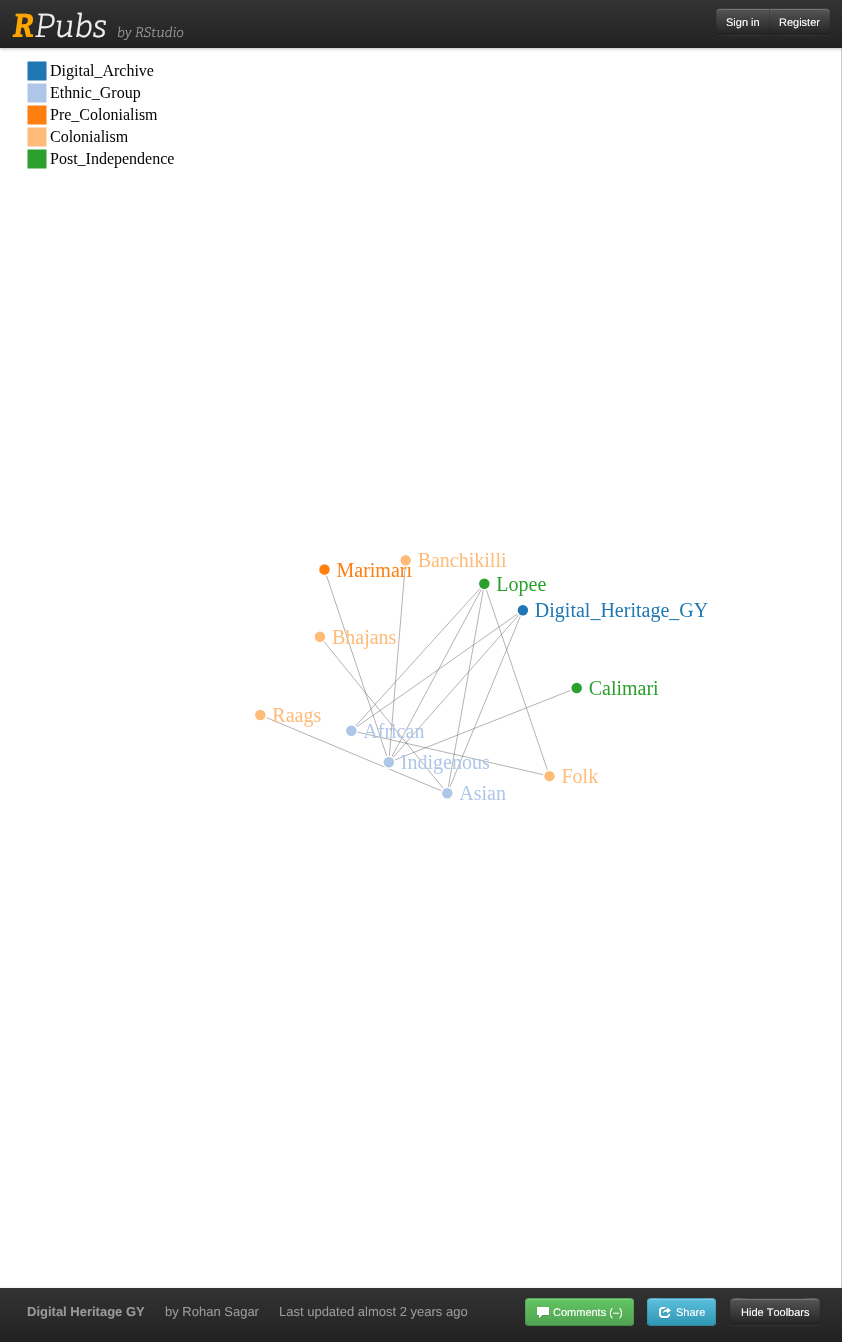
void draw(SkCanvas* c) {
SkPaint p;
p.setAntiAlias(true);
auto F=[&](const char* family, int weight, float size, bool italic = false){SkFontStyle style(weight, SkFontStyle::kNormal_Width,italic ? SkFontStyle::kItalic_Slant : SkFontStyle::kUpright_Slant);SkFont result(fontMgr->matchFamilyStyle(family, style), size);result.setSubpixel(true);return result;};
auto T=[&](const char* s, float x, float y, const SkFont& font){c->drawString(s, x, y, font, p);};
auto R=[&](float x, float y, float w, float h){c->drawRect(SkRect::MakeXYWH(x, y, w, h), p);};
auto Q=[&](float x, float y, float w, float h, float radius){c->drawRoundRect(SkRect::MakeXYWH(x, y, w, h), radius, radius, p);};
auto I=[&](const char* path, float x, float y, float w, float h){auto image = SkImages::DeferredFromEncodedData(SkData::MakeFromFileName(path));c->drawImageRect(image, SkRect::MakeXYWH(x, y, w, h), SkSamplingOptions());};
auto P=[&](const char* data, bool evenOdd = false){SkPath result = *SkParsePath::FromSVGString(data);if (evenOdd) result.setFillType(SkPathFillType::kEvenOdd);return result;};
c->clear(0xffffffff);
I("1.png",0,48,841,1240);
p.setColor(0xffcccccc);
R(841,48,1,1240);
p.setColor(0x40000000);
p.setMaskFilter(SkMaskFilter::MakeBlur(kNormal_SkBlurStyle, 1.5));
c->drawRect(SkRect::MakeXYWH(0,1,842,48),p);
p.setMaskFilter(nullptr);
{
const SkColor colors[] = {0xff333333,0xff222222};
const float stops[] = {0,1};
const SkPoint ends[] = {{421,0}, {421,48}};
p.setShader(SkGradientShader::MakeLinear(ends, colors, stops, 2, SkTileMode::kClamp));
p.setAlpha(255);
}
R(0,0,842,47);
p.setShader(nullptr);
p.setColor(0xff1f1f1f);
R(0,47,842,1);
auto f1 = F("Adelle",700,32,true);
p.setColor(0xffffa500);
T("R",12,37,f1);
auto f2 = F("Adelle",300,32,true);
p.setColor(0xffeeeeee);
T("Pubs",34,37,f2);
auto f3 = F("Adelle",300,13.5,true);
p.setColor(0xff999999);
T("by RStudio",117,37,f3);
p.setColor(0xff414141);
c->drawPath(P("M720 8h50v28h-50c-2 0-4-2-4-4v-20c0-2 2-4 4-4z"),p);
c->save();
c->clipPath(P("M720 8h50v28h-50c-2 0-4-2-4-4v-20c0-2 2-4 4-4z"),true);
{
const SkColor colors[] = {0xff555555,0xff222222};
const float stops[] = {0,1};
const SkPoint ends[] = {{743,9}, {743,35}};
p.setShader(SkGradientShader::MakeLinear(ends, colors, stops, 2, SkTileMode::kClamp));
p.setAlpha(255);
}
R(716,9,53,26);
c->restore();
p.setShader(nullptr);
p.setColor(0xff767676);
c->drawPath(P("M720 10h49v-1h-49c-2 0-3 1-3 3v1c0-2 1-3 3-3z"),p);
p.setColor(0x1a000000);
c->drawPath(P("M720 8l-3 1l1 1c2-2 45-1 51-1l1-1z"),p);
p.setColor(0x40000000);
c->drawPath(P("M770 36l-1-1c-6 0-49 1-51-1l-1 1l3 1z"),p);
p.setColor(0x1a000000);
c->drawPath(P("M716 12v20c0 1 .5 2 1 3l1-1c-1 0-1-1-1-2v-20c0-1 0-2 1-2l-1-1c-.5 1-1 2-1 3z"),p);
auto f4 = F("Liberation Sans",400,11);
p.setColor(0xffffffff);
T("Sign in",726,26,f4);
p.setColor(0xff414141);
c->drawPath(P("M769 8h57c2 0 4 2 4 4v20c0 2-2 4-4 4h-57z"),p);
c->save();
c->clipPath(P("M769 8h57c2 0 4 2 4 4v20c0 2-2 4-4 4h-57z"),true);
{
const SkColor colors[] = {0xff555555,0xff222222};
const float stops[] = {0,1};
const SkPoint ends[] = {{800,9}, {800,35}};
p.setShader(SkGradientShader::MakeLinear(ends, colors, stops, 2, SkTileMode::kClamp));
p.setAlpha(255);
}
R(769,9,61,26);
c->restore();
p.setShader(nullptr);
p.setColor(0xff767676);
c->drawPath(P("M770 10h56c2 0 3 1 3 3v-1c0-2-1-3-3-3h-56z"),p);
p.setColor(0x1a000000);
c->drawPath(P("M769 8l1 1c7 0 56-1 58 1l1-1l-3-1z"),p);
c->drawPath(P("M830 32v-20c0-1-.5-2-1-3l-1 1c1 0 1 1 1 2v20c0 1 0 2-1 2l1 1c.5-1 1-2 1-3z"),p);
p.setColor(0x40000000);
c->drawPath(P("M826 36l3-1l-1-1c-2 2-51 1-58 1l-1 1z"),p);
p.setColor(0x1a000000);
c->drawPath(P("M769 8v28l1-1v-26z"),p);
p.setColor(0xffffffff);
T("Register",779,26,f4);
p.setColor(0x40000000);
p.setMaskFilter(SkMaskFilter::MakeBlur(kNormal_SkBlurStyle, 1.5));
c->drawRect(SkRect::MakeXYWH(0,1289,842,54),p);
p.setMaskFilter(nullptr);
{
const SkColor colors[] = {0xff333333,0xff222222};
const float stops[] = {0,1};
const SkPoint ends[] = {{421,1288}, {421,1342}};
p.setShader(SkGradientShader::MakeLinear(ends, colors, stops, 2, SkTileMode::kClamp));
p.setAlpha(255);
}
R(0,1288,842,53);
p.setShader(nullptr);
p.setColor(0xff1f1f1f);
R(0,1341,842,1);
auto f5 = F("Liberation Sans",700,13);
p.setColor(0xff999999);
T("Digital Heritage GY",27,1316,f5);
auto f6 = F("Liberation Sans",400,13);
T("by Rohan Sagar",165,1316,f6);
T("Last updated almost 2 years ago",279,1316,f6);
p.setColor(0xff5bb75b);
Q(525,1298,109,28,4);
c->save();
c->clipPath(P("M529 1298h101c2 0 4 2 4 4v20c0 2-2 4-4 4h-101c-2 0-4-2-4-4v-20c0-2 2-4 4-4z"),true);
{
const SkColor colors[] = {0xff62c462,0xff51a351};
const float stops[] = {0,1};
const SkPoint ends[] = {{580,1299}, {580,1325}};
p.setShader(SkGradientShader::MakeLinear(ends, colors, stops, 2, SkTileMode::kClamp));
p.setAlpha(255);
}
R(525,1299,109,26);
c->restore();
p.setShader(nullptr);
p.setColor(0xff81cf81);
c->drawPath(P("M529 1300h102c1 0 2 2 2 3v-1c0-2-1-3-3-3h-101c-2 0-3 1-3 3c0-1 1-2 3-2zm104 20v3z",true),p);
p.setStroke(true);
p.setStrokeWidth(1);
p.setColor(0x40000000);
c->drawPath(P("M632.5 1324.5l-2.5 1h-101.5l-2-1"),p);
p.setColor(0x1a000000);
c->drawPath(P("M526.5 1324.5c-2-2-1-6.5-1-9c0-21-3-17 20.5-17h67c23.5 0 20.5-4 20.5 17c0 2.5 1 7-1 9"),p);
I("2.png",537,1307,12,12);
p.setStroke(false);
p.setColor(0xffffffff);
T("Comments (–)",553,1316,f4);
p.setColor(0xff49afcd);
Q(647,1298,69,28,4);
c->save();
c->clipPath(P("M651 1298h61c2 0 4 2 4 4v20c0 2-2 4-4 4h-61c-2 0-4-2-4-4v-20c0-2 2-4 4-4z"),true);
{
const SkColor colors[] = {0xff5bc0de,0xff2f96b4};
const float stops[] = {0,1};
const SkPoint ends[] = {{682,1299}, {682,1325}};
p.setShader(SkGradientShader::MakeLinear(ends, colors, stops, 2, SkTileMode::kClamp));
p.setAlpha(255);
}
R(647,1299,69,26);
c->restore();
p.setShader(nullptr);
p.setColor(0x33ffffff);
c->drawPath(P("M651 1300h61c2 0 3 1 3 3c0-7-9-4-13-4h-41c-4 0-13-3-13 4c0-2 1-3 3-3z"),p);
p.setStroke(true);
p.setColor(0x40000000);
c->drawPath(P("M714.5 1324.5l-2 1h-62l-2-1"),p);
p.setColor(0x1a000000);
c->drawPath(P("M648.5 1324.5c-2-2.5-1-10-1-12.5c0-15-2-13.5 13.5-13.5h41c15.5 0 13.5-1.5 13.5 13.5c0 2.5 1 10-1 12.5"),p);
I("3.png",659,1307,12,12);
p.setStroke(false);
p.setColor(0xffffffff);
T("Share",676,1316,f4);
p.setColor(0xff414141);
Q(730,1298,90,28,4);
c->save();
c->clipPath(P("M734 1298h82c2 0 4 2 4 4v20c0 2-2 4-4 4h-82c-2 0-4-2-4-4v-20c0-2 2-4 4-4z"),true);
{
const SkColor colors[] = {0xff555555,0xff222222};
const float stops[] = {0,1};
const SkPoint ends[] = {{775,1299}, {775,1325}};
p.setShader(SkGradientShader::MakeLinear(ends, colors, stops, 2, SkTileMode::kClamp));
p.setAlpha(255);
}
R(730,1299,90,26);
c->restore();
p.setShader(nullptr);
p.setColor(0x33ffffff);
c->drawPath(P("M734 1300h82c2 0 3 1 3 3c0-8-13-4-17-4h-54c-4 0-17-4-17 4c0-2 1-3 3-3z"),p);
p.setStroke(true);
p.setColor(0x40000000);
c->drawPath(P("M818.5 1324.5l-2 1h-83l-2-1"),p);
p.setColor(0x1a000000);
c->drawPath(P("M731.5 1324.5c-2-2-1-6.5-1-9c0-19.5-3-17 17-17h55c20 0 17-2.5 17 17c0 2.5 1 7-1 9"),p);
p.setStroke(false);
p.setColor(0xffffffff);
T("Hide Toolbars",741,1316,f4);
}
